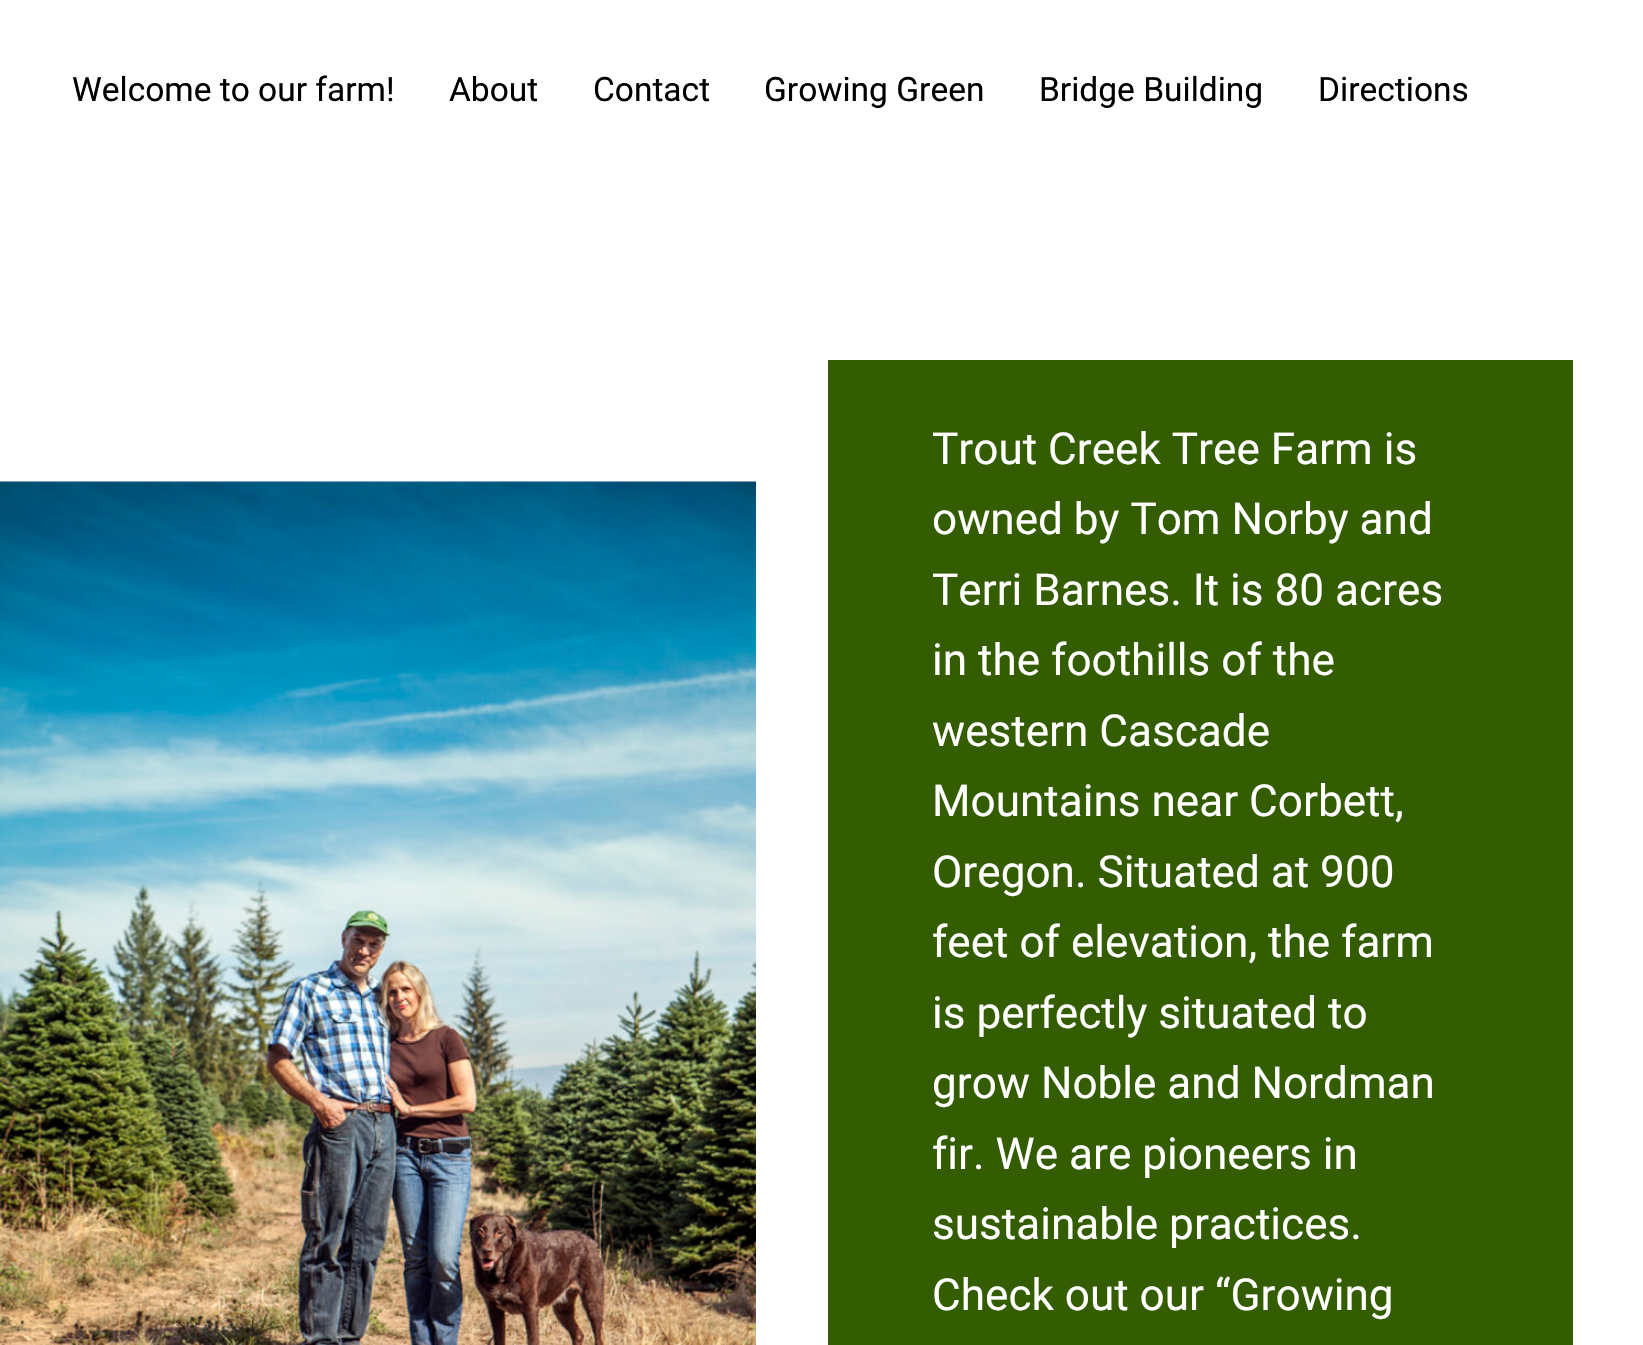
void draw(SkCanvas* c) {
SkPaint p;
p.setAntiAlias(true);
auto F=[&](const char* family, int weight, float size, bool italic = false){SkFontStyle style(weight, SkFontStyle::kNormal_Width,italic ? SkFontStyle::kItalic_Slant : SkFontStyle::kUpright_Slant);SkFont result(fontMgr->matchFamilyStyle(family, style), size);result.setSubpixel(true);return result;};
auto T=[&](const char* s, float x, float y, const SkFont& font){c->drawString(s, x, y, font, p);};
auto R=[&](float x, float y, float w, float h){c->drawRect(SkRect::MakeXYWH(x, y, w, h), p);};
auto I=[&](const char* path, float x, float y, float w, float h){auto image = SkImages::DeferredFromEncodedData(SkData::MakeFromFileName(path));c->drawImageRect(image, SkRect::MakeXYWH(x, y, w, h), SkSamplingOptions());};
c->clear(0xffffffff);
auto f1 = F("Roboto",400,33.5);
p.setColor(0xff000000);
T("Welcome to our farm!",72,101,f1);
T("About",449,101,f1);
T("Contact",593,101,f1);
T("Growing Green",764,101,f1);
T("Bridge Building",1039,101,f1);
T("Directions",1318,101,f1);
I("1.png",0,481,756,864);
p.setColor(0xff345c00);
R(828,360,745,985);
auto f2 = F("Roboto",400,44.1);
p.setColor(0xffffffff);
T("Trout Creek Tree Farm is",932,464,f2);
T("owned by Tom Norby and",932,534,f2);
T("Terri Barnes. It is 80 acres",932,605,f2);
T("in the foothills of the",932,675,f2);
T("western Cascade",932,746,f2);
T("Mountains near Corbett,",932,816,f2);
T("Oregon. Situated at 900",932,887,f2);
T("feet of elevation, the farm",932,957,f2);
T("is perfectly situated to",932,1028,f2);
T("grow Noble and Nordman",932,1098,f2);
T("fir. We are pioneers in",932,1169,f2);
T("sustainable practices.",932,1239,f2);
T("Check out our “Growing",932,1310,f2);
}
